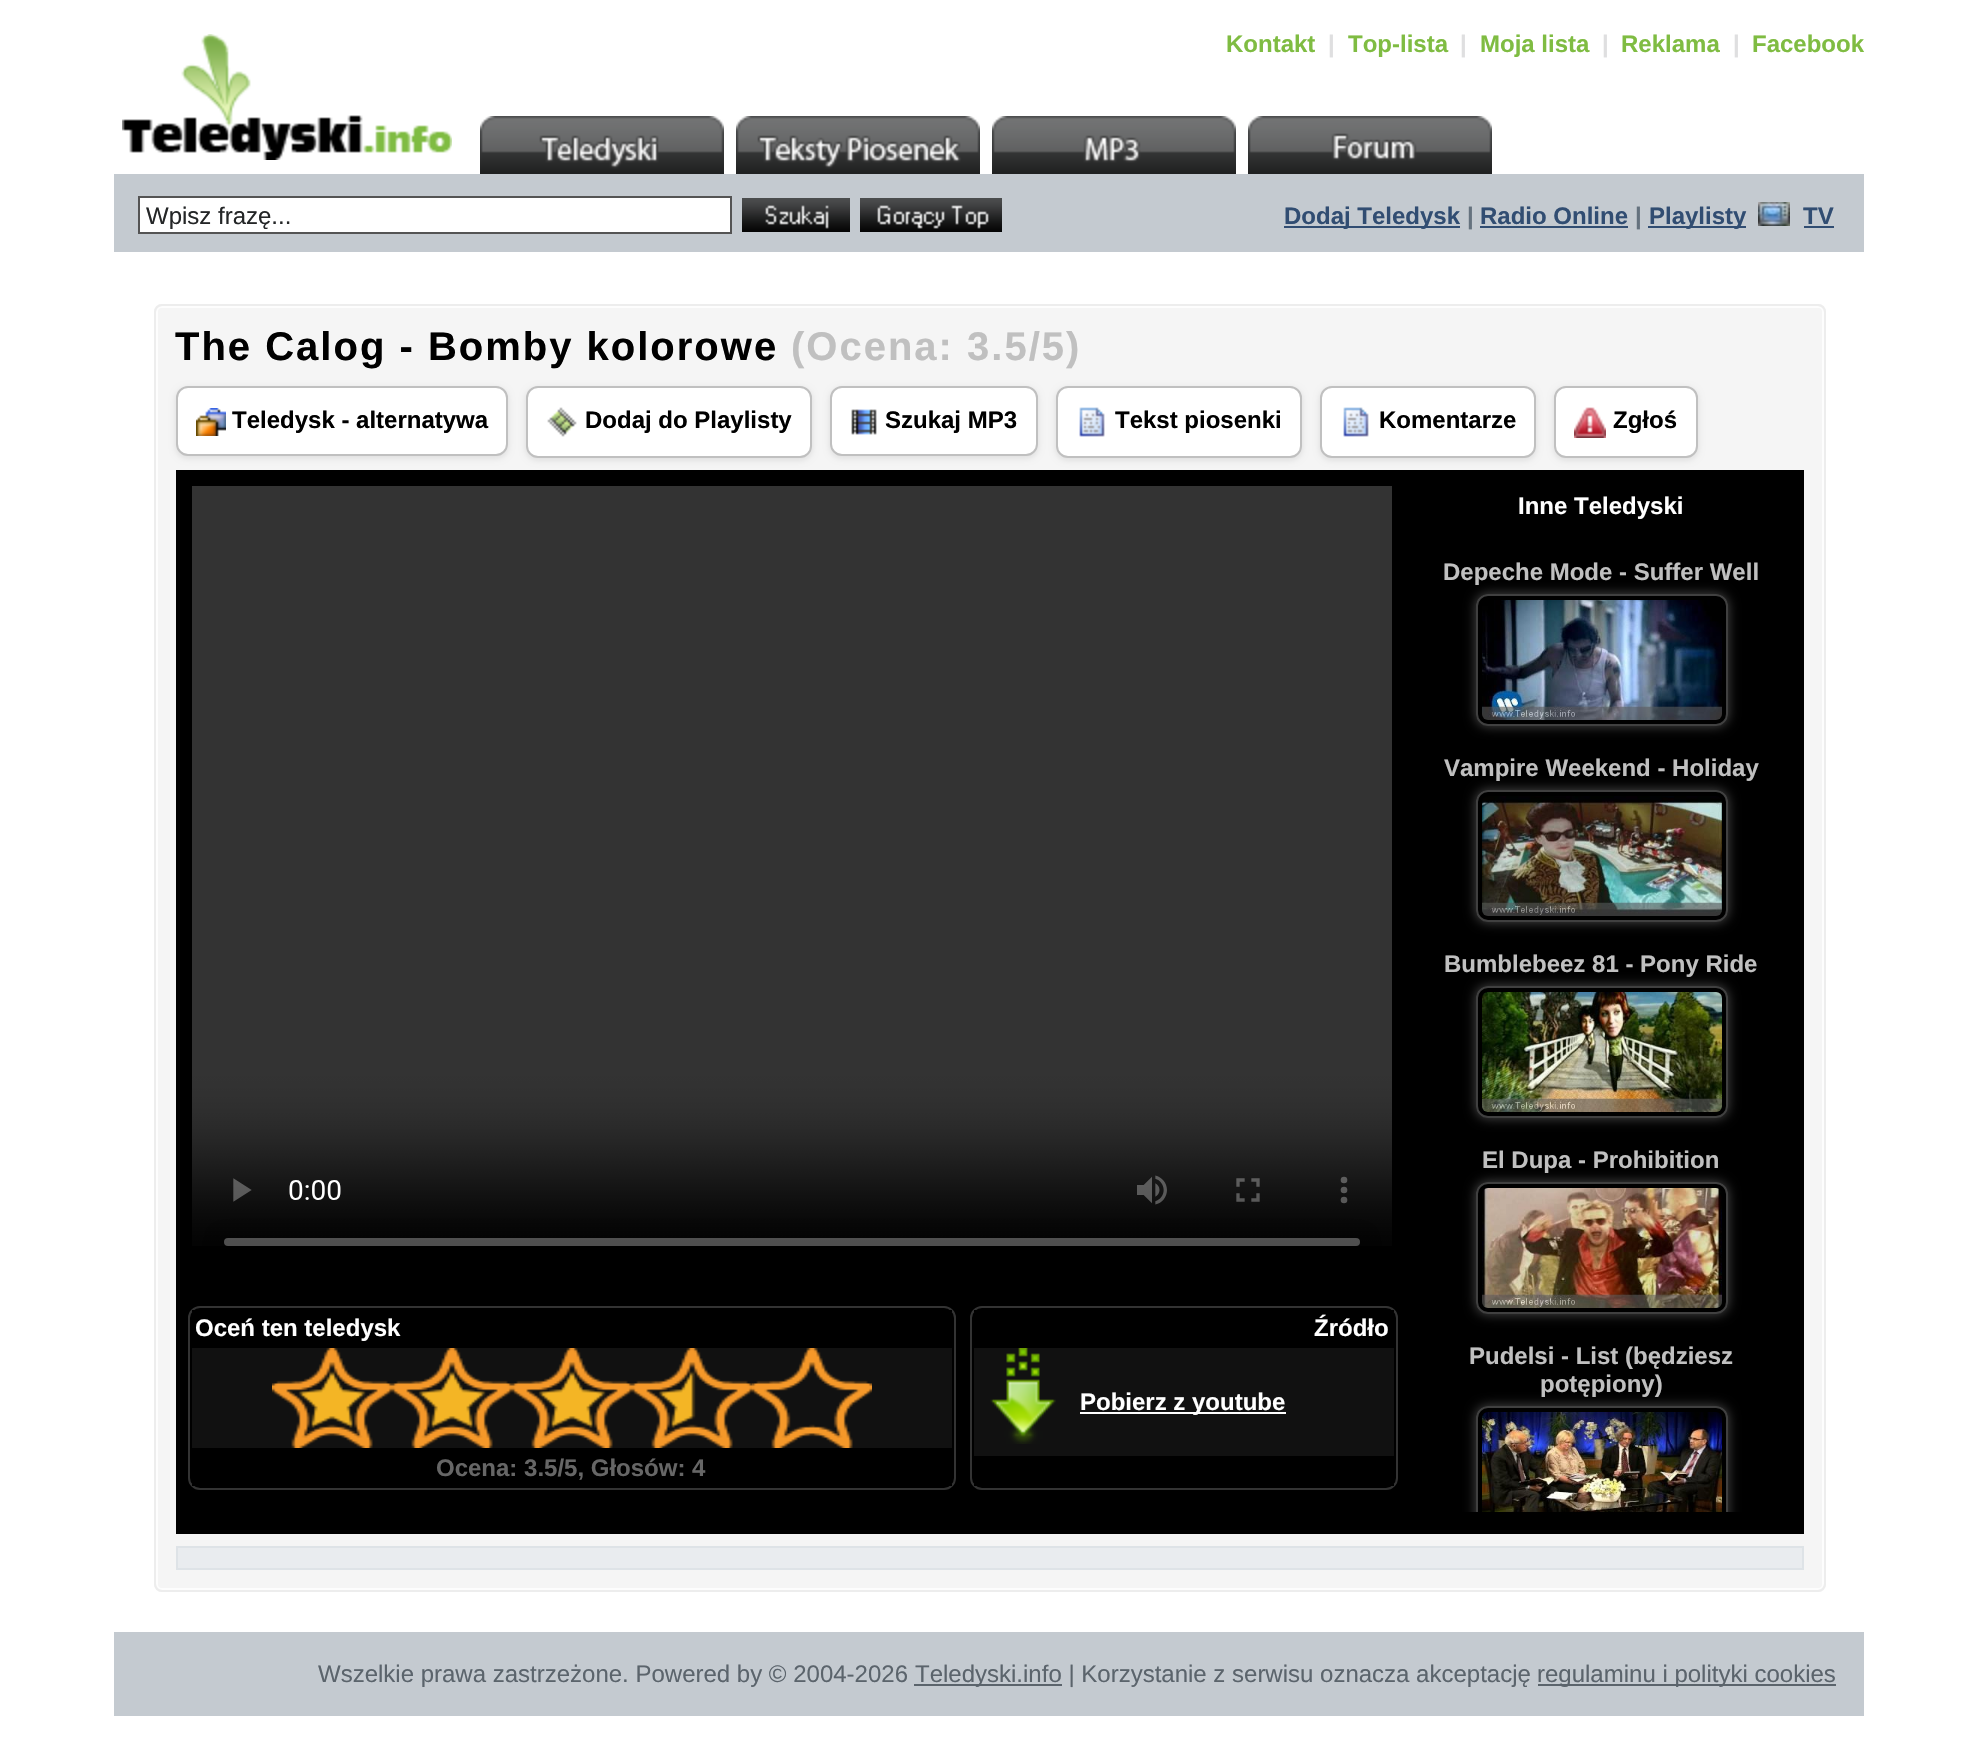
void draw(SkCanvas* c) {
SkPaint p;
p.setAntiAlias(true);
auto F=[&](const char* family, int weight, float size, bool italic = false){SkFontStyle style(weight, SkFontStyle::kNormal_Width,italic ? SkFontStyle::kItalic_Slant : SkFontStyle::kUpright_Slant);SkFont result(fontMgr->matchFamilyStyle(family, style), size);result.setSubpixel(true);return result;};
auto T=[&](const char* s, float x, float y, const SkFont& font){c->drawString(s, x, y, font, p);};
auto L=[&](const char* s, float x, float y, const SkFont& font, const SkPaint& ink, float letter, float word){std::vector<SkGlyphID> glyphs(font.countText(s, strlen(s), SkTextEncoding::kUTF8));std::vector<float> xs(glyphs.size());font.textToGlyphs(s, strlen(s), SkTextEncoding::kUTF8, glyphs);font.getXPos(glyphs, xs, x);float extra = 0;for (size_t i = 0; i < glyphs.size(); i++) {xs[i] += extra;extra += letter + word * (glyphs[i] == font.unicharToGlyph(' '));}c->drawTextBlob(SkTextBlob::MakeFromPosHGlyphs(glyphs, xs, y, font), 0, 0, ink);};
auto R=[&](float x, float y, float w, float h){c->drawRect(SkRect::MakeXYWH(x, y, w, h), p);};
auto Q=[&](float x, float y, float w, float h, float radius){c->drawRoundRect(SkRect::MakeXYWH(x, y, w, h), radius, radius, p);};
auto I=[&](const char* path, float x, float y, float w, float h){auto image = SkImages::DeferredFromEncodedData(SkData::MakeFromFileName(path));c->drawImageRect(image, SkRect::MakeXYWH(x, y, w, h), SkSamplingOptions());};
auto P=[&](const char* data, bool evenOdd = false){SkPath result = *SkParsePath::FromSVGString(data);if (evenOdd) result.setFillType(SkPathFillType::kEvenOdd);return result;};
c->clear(0xffffffff);
I("1.png",122,34,330,126);
auto f1 = F("Liberation Sans",700,24);
p.setColor(0xff7fbc42);
T("Kontakt",1226,52,f1);
p.setColor(0xffdfdfe0);
T("|",1328,52,f1);
p.setColor(0xff7fbc42);
T("Top-lista",1348,52,f1);
p.setColor(0xffdfdfe0);
T("|",1460,52,f1);
p.setColor(0xff7fbc42);
T("Moja lista",1480,52,f1);
p.setColor(0xffdfdfe0);
T("|",1602,52,f1);
p.setColor(0xff7fbc42);
T("Reklama",1621,52,f1);
p.setColor(0xffdfdfe0);
T("|",1733,52,f1);
p.setColor(0xff7fbc42);
T("Facebook",1752,52,f1);
I("2.png",480,116,244,58);
I("3.png",736,116,244,58);
I("4.png",992,116,244,58);
I("5.png",1248,116,244,58);
p.setColor(0xffc4cad0);
R(114,174,1750,78);
p.setColor(0xffffffff);
c->drawRect(SkRect::MakeXYWH(139,197,592,36),p);
p.setStroke(true);
p.setStrokeWidth(2);
p.setColor(0xff545454);
c->drawRect(SkRect::MakeXYWH(139,197,592,36),p);
auto f2 = F("Liberation Sans",400,24);
p.setStroke(false);
p.setColor(0xff242627);
T("Wpisz frazę...",146,224,f2);
I("6.png",742,198,108,34);
I("7.png",860,198,142,34);
p.setColor(0xff314d72);
R(1284,226,176,2);
T("Dodaj Teledysk",1284,224,f1);
p.setColor(0xff65727e);
T("|",1467,224,f1);
p.setColor(0xff314d72);
T("Radio Online",1480,224,f1);
R(1480,226,148,2);
p.setColor(0xff65727e);
T("|",1635,224,f1);
p.setColor(0xff314d72);
R(1648,226,98,2);
T("Playlisty",1649,224,f1);
I("8.png",1758,202,32,24);
T("TV",1803,224,f1);
R(1804,226,30,2);
p.setColor(0xfff5f5f5);
Q(154,304,1672,1288,8);
p.setStroke(true);
p.setColor(0xfffdfdfd);
c->drawRoundRect(SkRect::MakeXYWH(157,307,1666,1282),5,5,p);
p.setColor(0xffededed);
c->drawRoundRect(SkRect::MakeXYWH(155,305,1670,1286),7,7,p);
auto f3 = F("Liberation Sans",700,40);
p.setStroke(false);
p.setColor(0xff000000);
L("The Calog - Bomby kolorowe",175,360,f3,p,2,0);
p.setColor(0xffc0c0c0);
L("(Ocena: 3.5/5)",791,360,f3,p,2,0);
p.setColor(0x1a000000);
p.setMaskFilter(SkMaskFilter::MakeBlur(kNormal_SkBlurStyle, 3));
c->drawRoundRect(SkRect::MakeXYWH(176,388,332,70),12,12,p);
p.setMaskFilter(nullptr);
p.setColor(0xffffffff);
c->drawRoundRect(SkRect::MakeXYWH(177,387,330,68),11,11,p);
p.setStroke(true);
p.setColor(0xffc0c0c0);
c->drawRoundRect(SkRect::MakeXYWH(177,387,330,68),11,11,p);
I("9.png",196,408,30,28);
p.setStroke(false);
p.setColor(0xff000000);
T("Teledysk - alternatywa",232,428,f1);
p.setColor(0x1a000000);
p.setMaskFilter(SkMaskFilter::MakeBlur(kNormal_SkBlurStyle, 3));
c->drawRoundRect(SkRect::MakeXYWH(526,388,286,72),12,12,p);
p.setMaskFilter(nullptr);
p.setColor(0xffffffff);
c->drawRoundRect(SkRect::MakeXYWH(527,387,284,70),11,11,p);
p.setStroke(true);
p.setColor(0xffc0c0c0);
c->drawRoundRect(SkRect::MakeXYWH(527,387,284,70),11,11,p);
I("10.png",547,407,30,30);
p.setStroke(false);
p.setColor(0xff000000);
T("Dodaj do Playlisty",585,428,f1);
p.setColor(0x1a000000);
p.setMaskFilter(SkMaskFilter::MakeBlur(kNormal_SkBlurStyle, 3));
c->drawRoundRect(SkRect::MakeXYWH(830,388,208,70),12,12,p);
p.setMaskFilter(nullptr);
p.setColor(0xffffffff);
c->drawRoundRect(SkRect::MakeXYWH(831,387,206,68),11,11,p);
p.setStroke(true);
p.setColor(0xffc0c0c0);
c->drawRoundRect(SkRect::MakeXYWH(831,387,206,68),11,11,p);
I("11.png",851,409,26,26);
p.setStroke(false);
p.setColor(0xff000000);
T("Szukaj MP3",885,428,f1);
p.setColor(0x1a000000);
p.setMaskFilter(SkMaskFilter::MakeBlur(kNormal_SkBlurStyle, 3));
c->drawRoundRect(SkRect::MakeXYWH(1056,388,246,72),12,12,p);
p.setMaskFilter(nullptr);
p.setColor(0xffffffff);
c->drawRoundRect(SkRect::MakeXYWH(1057,387,244,70),11,11,p);
p.setStroke(true);
p.setColor(0xffc0c0c0);
c->drawRoundRect(SkRect::MakeXYWH(1057,387,244,70),11,11,p);
I("12.png",1079,407,26,30);
p.setStroke(false);
p.setColor(0xff000000);
T("Tekst piosenki",1115,428,f1);
p.setColor(0x1a000000);
p.setMaskFilter(SkMaskFilter::MakeBlur(kNormal_SkBlurStyle, 3));
c->drawRoundRect(SkRect::MakeXYWH(1320,388,216,72),12,12,p);
p.setMaskFilter(nullptr);
p.setColor(0xffffffff);
c->drawRoundRect(SkRect::MakeXYWH(1321,387,214,70),11,11,p);
p.setStroke(true);
p.setColor(0xffc0c0c0);
c->drawRoundRect(SkRect::MakeXYWH(1321,387,214,70),11,11,p);
I("12.png",1343,407,26,30);
p.setStroke(false);
p.setColor(0xff000000);
T("Komentarze",1379,428,f1);
p.setColor(0x1a000000);
p.setMaskFilter(SkMaskFilter::MakeBlur(kNormal_SkBlurStyle, 3));
c->drawRoundRect(SkRect::MakeXYWH(1554,388,144,72),12,12,p);
p.setMaskFilter(nullptr);
p.setColor(0xffffffff);
c->drawRoundRect(SkRect::MakeXYWH(1555,387,142,70),11,11,p);
p.setStroke(true);
p.setColor(0xffc0c0c0);
c->drawRoundRect(SkRect::MakeXYWH(1555,387,142,70),11,11,p);
I("13.png",1574,407,32,31);
p.setStroke(false);
p.setColor(0xff000000);
T("Zgłoś",1613,428,f1);
R(176,470,1628,1064);
I("14.png",192,486,1200,760);
p.setStroke(true);
p.setColor(0xff333333);
c->drawRoundRect(SkRect::MakeXYWH(189,1307,766,182),11,11,p);
p.setStroke(false);
p.setColor(0xff000000);
R(192,1310,760,2);
p.setColor(0xffffffff);
T("Oceń ten teledysk",195,1336,f1);
p.setColor(0xff111111);
R(192,1348,760,100);
I("15.png",272,1348,120,100);
I("16.png",392,1348,120,100);
I("16.png",512,1348,120,100);
I("17.png",632,1348,120,100);
I("18.png",752,1348,120,100);
p.setColor(0xff000000);
R(192,1484,760,2);
p.setColor(0xff666666);
T("Ocena: 3.5/5, Głosów: 4",436,1476,f1);
p.setStroke(true);
p.setColor(0xff333333);
c->drawRoundRect(SkRect::MakeXYWH(971,1307,426,182),11,11,p);
p.setStroke(false);
p.setColor(0xff000000);
R(974,1310,420,2);
p.setColor(0xffffffff);
T("Źródło",1314,1336,f1);
p.setColor(0xff111111);
R(974,1348,420,108);
I("19.png",990,1348,66,96);
p.setColor(0xffffffff);
R(1080,1412,206,2);
T("Pobierz z youtube",1080,1410,f1);
p.setColor(0xff000000);
R(974,1484,420,2);
p.setColor(0xffffffff);
T("Inne Teledyski",1518,514,f1);
p.setColor(0xffc0c0c0);
T("Depeche Mode - Suffer Well",1443,580,f1);
c->save();
c->clipPath(P("M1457 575h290v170h-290zm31 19h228c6.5 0 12 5.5 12 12v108c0 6.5-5.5 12-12 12h-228c-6.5 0-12-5.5-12-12v-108c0-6.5 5.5-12 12-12z",true),true);
p.setColor(0xbf646464);
p.setMaskFilter(SkMaskFilter::MakeBlur(kNormal_SkBlurStyle, 6));
c->drawRoundRect(SkRect::MakeXYWH(1476,594,252,132),12,12,p);
p.setMaskFilter(nullptr);
c->restore();
p.setStroke(true);
p.setColor(0xff404040);
c->drawRoundRect(SkRect::MakeXYWH(1477,595,250,130),11,11,p);
I("20.png",1482,600,240,120);
p.setStroke(false);
p.setColor(0xffc0c0c0);
T("Vampire Weekend - Holiday",1444,776,f1);
c->save();
c->clipPath(P("M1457 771h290v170h-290zm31 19h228c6.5 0 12 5.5 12 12v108c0 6.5-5.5 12-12 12h-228c-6.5 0-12-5.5-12-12v-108c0-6.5 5.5-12 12-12z",true),true);
p.setColor(0xbf646464);
p.setMaskFilter(SkMaskFilter::MakeBlur(kNormal_SkBlurStyle, 6));
c->drawRoundRect(SkRect::MakeXYWH(1476,790,252,132),12,12,p);
p.setMaskFilter(nullptr);
c->restore();
p.setStroke(true);
p.setColor(0xff404040);
c->drawRoundRect(SkRect::MakeXYWH(1477,791,250,130),11,11,p);
I("21.png",1482,796,240,120);
p.setStroke(false);
p.setColor(0xffc0c0c0);
T("Bumblebeez 81 - Pony Ride",1444,972,f1);
c->save();
c->clipPath(P("M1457 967h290v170h-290zm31 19h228c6.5 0 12 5.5 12 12v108c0 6.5-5.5 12-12 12h-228c-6.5 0-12-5.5-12-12v-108c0-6.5 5.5-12 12-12z",true),true);
p.setColor(0xbf646464);
p.setMaskFilter(SkMaskFilter::MakeBlur(kNormal_SkBlurStyle, 6));
c->drawRoundRect(SkRect::MakeXYWH(1476,986,252,132),12,12,p);
p.setMaskFilter(nullptr);
c->restore();
p.setStroke(true);
p.setColor(0xff404040);
c->drawRoundRect(SkRect::MakeXYWH(1477,987,250,130),11,11,p);
I("22.png",1482,992,240,120);
p.setStroke(false);
p.setColor(0xffc0c0c0);
T("El Dupa - Prohibition",1482,1168,f1);
c->save();
c->clipPath(P("M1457 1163h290v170h-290zm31 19h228c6.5 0 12 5.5 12 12v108c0 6.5-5.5 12-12 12h-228c-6.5 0-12-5.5-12-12v-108c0-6.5 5.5-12 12-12z",true),true);
p.setColor(0xbf646464);
p.setMaskFilter(SkMaskFilter::MakeBlur(kNormal_SkBlurStyle, 6));
c->drawRoundRect(SkRect::MakeXYWH(1476,1182,252,132),12,12,p);
p.setMaskFilter(nullptr);
c->restore();
p.setStroke(true);
p.setColor(0xff404040);
c->drawRoundRect(SkRect::MakeXYWH(1477,1183,250,130),11,11,p);
I("23.png",1482,1188,240,120);
p.setStroke(false);
p.setColor(0xffc0c0c0);
T("Pudelsi - List (będziesz",1469,1364,f1);
T("potępiony)",1540,1392,f1);
p.setColor(0xffdee3e7);
R(176,1546,1628,24);
p.setColor(0xffe9ecef);
R(178,1548,1624,20);
c->save();
c->clipRect(SkRect::MakeXYWH(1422,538,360,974));
c->clipPath(P("M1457 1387h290v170h-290zm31 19h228c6.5 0 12 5.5 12 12v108c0 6.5-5.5 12-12 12h-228c-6.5 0-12-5.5-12-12v-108c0-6.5 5.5-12 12-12z",true),true);
p.setColor(0xbf646464);
p.setMaskFilter(SkMaskFilter::MakeBlur(kNormal_SkBlurStyle, 6));
c->drawRoundRect(SkRect::MakeXYWH(1476,1406,252,132),12,12,p);
p.setMaskFilter(nullptr);
c->restore();
c->save();
c->clipRect(SkRect::MakeXYWH(1422,538,360,974));
p.setStroke(true);
p.setColor(0xff404040);
c->drawRoundRect(SkRect::MakeXYWH(1477,1407,250,130),11,11,p);
c->restore();
I("24.png",1482,1412,240,100);
p.setStroke(false);
p.setColor(0xffc4cad0);
R(114,1632,1750,84);
p.setColor(0xff5b646c);
T("Wszelkie prawa zastrzeżone. Powered by © 2004-2026",318,1682,f2);
R(914,1684,148,2);
T("Teledyski.info | Korzystanie z serwisu oznacza akceptację",915,1682,f2);
R(1538,1684,298,2);
T("regulaminu i polityki cookies",1537,1682,f2);
}
